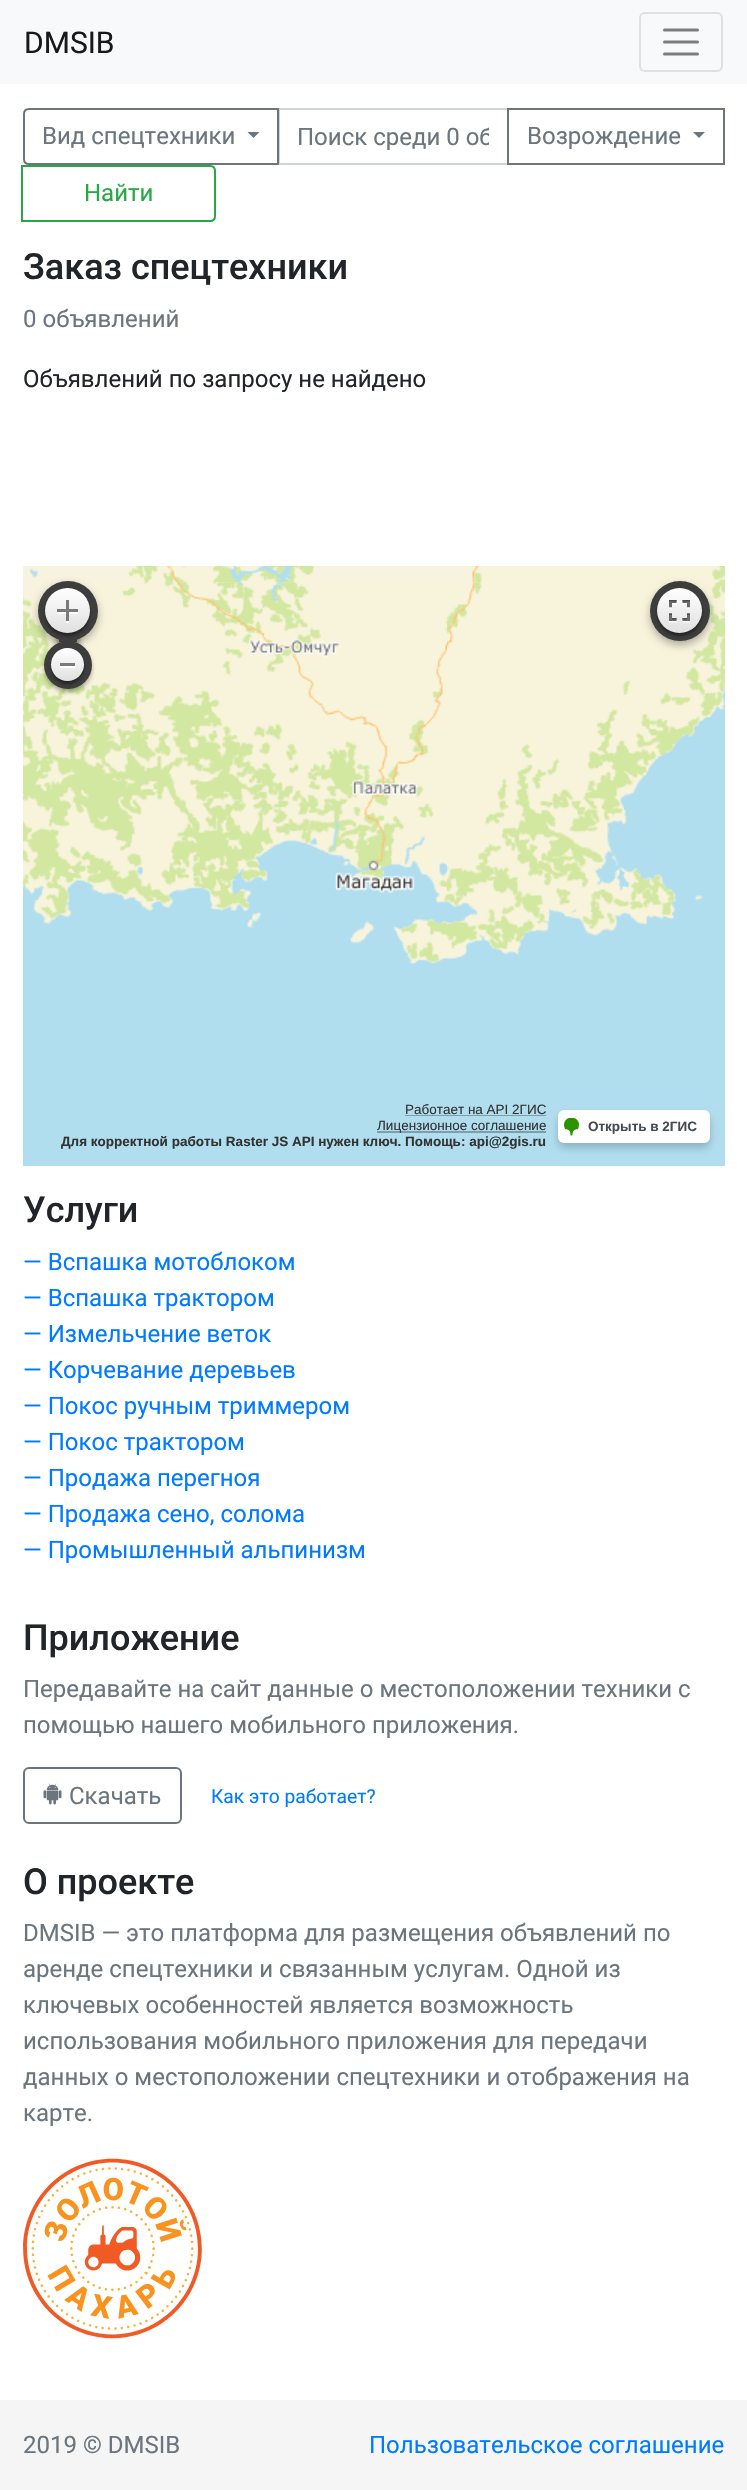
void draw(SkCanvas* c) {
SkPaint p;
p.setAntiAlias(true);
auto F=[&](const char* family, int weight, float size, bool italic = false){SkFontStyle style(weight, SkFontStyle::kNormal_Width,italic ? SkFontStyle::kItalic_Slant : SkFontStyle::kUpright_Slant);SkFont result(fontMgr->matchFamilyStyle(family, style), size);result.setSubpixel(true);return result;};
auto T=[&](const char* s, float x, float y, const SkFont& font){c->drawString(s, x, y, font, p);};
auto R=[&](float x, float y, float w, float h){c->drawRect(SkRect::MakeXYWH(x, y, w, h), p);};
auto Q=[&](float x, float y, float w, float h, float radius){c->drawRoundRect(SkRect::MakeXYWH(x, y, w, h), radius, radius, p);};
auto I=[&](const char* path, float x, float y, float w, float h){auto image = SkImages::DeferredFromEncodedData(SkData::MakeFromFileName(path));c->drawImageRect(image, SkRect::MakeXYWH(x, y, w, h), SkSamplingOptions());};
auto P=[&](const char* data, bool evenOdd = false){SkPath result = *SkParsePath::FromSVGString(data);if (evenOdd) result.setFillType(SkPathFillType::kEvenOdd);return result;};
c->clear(0xffffffff);
p.setColor(0xfff8f9fa);
R(0,0,747,84);
auto f1 = F("Roboto",400,30);
p.setColor(0xff191919);
T("DMSIB",24,53,f1);
p.setStroke(true);
p.setStrokeWidth(2);
p.setColor(0xffdfe0e1);
c->drawRoundRect(SkRect::MakeXYWH(640,13,82,58),5,5,p);
p.setStrokeWidth(3);
p.setStrokeCap(SkPaint::kRound_Cap);
p.setColor(0xff7c7d7d);
c->drawPath(P("M664.5 30h33m-33 12h33m-33 12h33"),p);
p.setStrokeWidth(2);
p.setStrokeCap(SkPaint::kButt_Cap);
p.setColor(0xffced4da);
c->drawRect(SkRect::MakeXYWH(279,109,229,55),p);
p.setColor(0xff6c757d);
c->drawPath(P("M29 109h249v55h-249c-3 0-5-2-5-5v-45c0-3 2-5 5-5z"),p);
auto f2 = F("Roboto",400,24);
p.setStroke(false);
T("Вид спецтехники",42,144,f2);
c->drawPath(P("M247.5 132h12l-6 6z"),p);
c->save();
c->clipRect(SkRect::MakeXYWH(297,123,192,29));
T("Поиск среди 0 об",297,145,f2);
c->restore();
p.setStroke(true);
c->drawRect(SkRect::MakeXYWH(508,109,216,55),p);
p.setStroke(false);
T("Возрождение",527,144,f2);
c->drawPath(P("M693 132h12l-6 6z"),p);
p.setStroke(true);
p.setColor(0xff28a745);
c->drawPath(P("M22 166h188c3 0 5 2 5 5v45c0 3-2 5-5 5h-188z"),p);
p.setStroke(false);
T("Найти",84,201,f2);
auto f3 = F("Roboto",500,36);
p.setColor(0xff212529);
T("Заказ спецтехники",23,279,f3);
p.setColor(0xff6c757d);
T("0 объявлений",23,327,f2);
p.setColor(0xff212529);
T("Объявлений по запросу не найдено",23,387,f2);
p.setColor(0xfff7f3df);
R(23,566,702,32);
I("1.png",29,568,9,10);
I("5.png",63,581,384,385);
I("2.png",127,566,189,16);
I("6.png",447,581,278,385);
I("3.png",472,566,253,16);
I("4.png",23,598,40,368);
p.setColor(0xffb1deef);
R(23,966,702,200);
p.setColor(0x4d000000);
p.setMaskFilter(SkMaskFilter::MakeBlur(kNormal_SkBlurStyle, 4));
c->drawRoundRect(SkRect::MakeXYWH(38,585,60,60),30,30,p);
p.setMaskFilter(nullptr);
p.setMaskFilter(SkMaskFilter::MakeBlur(kNormal_SkBlurStyle, 2));
c->drawRect(SkRect::MakeXYWH(56,636,24,9),p);
p.setMaskFilter(nullptr);
p.setColor(0xff3d3d3d);
c->drawCircle(68,611,30,p);
p.setColor(0x66000000);
p.setMaskFilter(SkMaskFilter::MakeBlur(kNormal_SkBlurStyle, 1.5));
c->drawRoundRect(SkRect::MakeXYWH(45,591,45,45),22.5,22.5,p);
p.setMaskFilter(nullptr);
{
const SkColor colors[] = {0xffffffff,0xffe0e0e0};
const float stops[] = {0,1};
const SkPoint ends[] = {{68,588}, {68,633}};
p.setShader(SkGradientShader::MakeLinear(ends, colors, stops, 2, SkTileMode::kClamp));
p.setAlpha(255);
}
c->drawCircle(67.5,610.5,22.5,p);
p.setShader(nullptr);
p.setColor(0xffffffff);
c->drawPath(P("M66 621v2h3v-2z"),p);
R(57,612,21,2);
p.setColor(0xff7a7a7a);
R(57,609,21,3);
R(66,600,3,21);
p.setColor(0x4d000000);
p.setMaskFilter(SkMaskFilter::MakeBlur(kNormal_SkBlurStyle, 2));
c->drawRoundRect(SkRect::MakeXYWH(44,644,48,48),24,24,p);
p.setMaskFilter(nullptr);
p.setColor(0xff3d3d3d);
c->drawCircle(68,665,24,p);
R(59,639,18,3);
p.setColor(0x66000000);
p.setMaskFilter(SkMaskFilter::MakeBlur(kNormal_SkBlurStyle, 1.5));
c->drawRoundRect(SkRect::MakeXYWH(51,651,33,33),16.5,16.5,p);
p.setMaskFilter(nullptr);
{
const SkColor colors[] = {0xffffffff,0xffe0e0e0};
const float stops[] = {0,1};
const SkPoint ends[] = {{68,648}, {68,681}};
p.setShader(SkGradientShader::MakeLinear(ends, colors, stops, 2, SkTileMode::kClamp));
p.setAlpha(255);
}
c->drawCircle(67.5,664.5,16.5,p);
p.setShader(nullptr);
p.setColor(0xffffffff);
R(60,666,15,2);
p.setColor(0xff7a7a7a);
R(60,663,15,3);
p.setColor(0x4d000000);
p.setMaskFilter(SkMaskFilter::MakeBlur(kNormal_SkBlurStyle, 4));
c->drawRoundRect(SkRect::MakeXYWH(650,585,60,60),30,30,p);
p.setMaskFilter(nullptr);
p.setColor(0xff3d3d3d);
c->drawCircle(680,611,30,p);
p.setColor(0x66000000);
p.setMaskFilter(SkMaskFilter::MakeBlur(kNormal_SkBlurStyle, 1.5));
c->drawRoundRect(SkRect::MakeXYWH(657,591,45,45),22.5,22.5,p);
p.setMaskFilter(nullptr);
{
const SkColor colors[] = {0xffffffff,0xffe0e0e0};
const float stops[] = {0,1};
const SkPoint ends[] = {{680,588}, {680,633}};
p.setShader(SkGradientShader::MakeLinear(ends, colors, stops, 2, SkTileMode::kClamp));
p.setAlpha(255);
}
c->drawCircle(679.5,610.5,22.5,p);
I("7.png",669,600,21,23);
auto f4 = F("Liberation Sans",400,13.5);
p.setShader(nullptr);
p.setColor(0xff333333);
T("Работает на API 2ГИС",405,1114,f4);
p.setColor(0xff7e9eaa);
R(405,1115,141,1);
R(377,1131,169,2);
p.setColor(0xff333333);
T("Лицензионное соглашение",377,1130,f4);
auto f5 = F("Liberation Sans",700,13.5);
T("Для корректной работы Raster JS API нужен ключ. Помощь: api@2gis.ru",61,1146,f5);
p.setColor(0x33000000);
p.setMaskFilter(SkMaskFilter::MakeBlur(kNormal_SkBlurStyle, 4));
c->drawRoundRect(SkRect::MakeXYWH(558,1115,152,33),6,6,p);
p.setMaskFilter(nullptr);
p.setColor(0xffffffff);
Q(558,1110,152,33,6);
I("8.png",564,1118,15,18);
p.setColor(0xff454c4f);
T("Открыть в 2ГИС",588,1131,f5);
p.setColor(0xff212529);
T("Услуги",23,1222,f3);
p.setColor(0xff007bff);
T("— Вспашка мотоблоком",23,1270,f2);
T("— Вспашка трактором",23,1306,f2);
T("— Измельчение веток",23,1342,f2);
T("— Корчевание деревьев",23,1378,f2);
T("— Покос ручным триммером",23,1414,f2);
T("— Покос трактором",23,1450,f2);
T("— Продажа перегноя",23,1486,f2);
T("— Продажа сено, солома",23,1522,f2);
T("— Промышленный альпинизм",23,1558,f2);
p.setColor(0xff212529);
T("Приложение",23,1650,f3);
p.setColor(0xff6c757d);
T("Передавайте на сайт данные о местоположении техники с",23,1697,f2);
T("помощью нашего мобильного приложения.",23,1733,f2);
p.setStroke(true);
c->drawRoundRect(SkRect::MakeXYWH(24,1768,157,55),5,5,p);
I("9.png",43,1783,19,22);
p.setStroke(false);
T("Скачать",69,1804,f2);
auto f6 = F("Roboto",400,19.25);
p.setColor(0xff007bff);
T("Как это работает?",211,1803,f6);
p.setColor(0xff212529);
T("О проекте",23,1894,f3);
p.setColor(0xff6c757d);
T("DMSIB — это платформа для размещения объявлений по",23,1941,f2);
T("аренде спецтехники и связанным услугам. Одной из",23,1977,f2);
T("ключевых особенностей является возможность",23,2013,f2);
T("использования мобильного приложения для передачи",23,2049,f2);
T("данных о местоположении спецтехники и отображения на",23,2085,f2);
T("карте.",23,2121,f2);
I("10.png",23,2158,179,181);
p.setColor(0xfff5f5f5);
R(0,2400,747,90);
p.setColor(0xff6c757d);
T("2019 © DMSIB",23,2453,f2);
p.setColor(0xff007bff);
T("Пользовательское соглашение",369,2453,f2);
}
